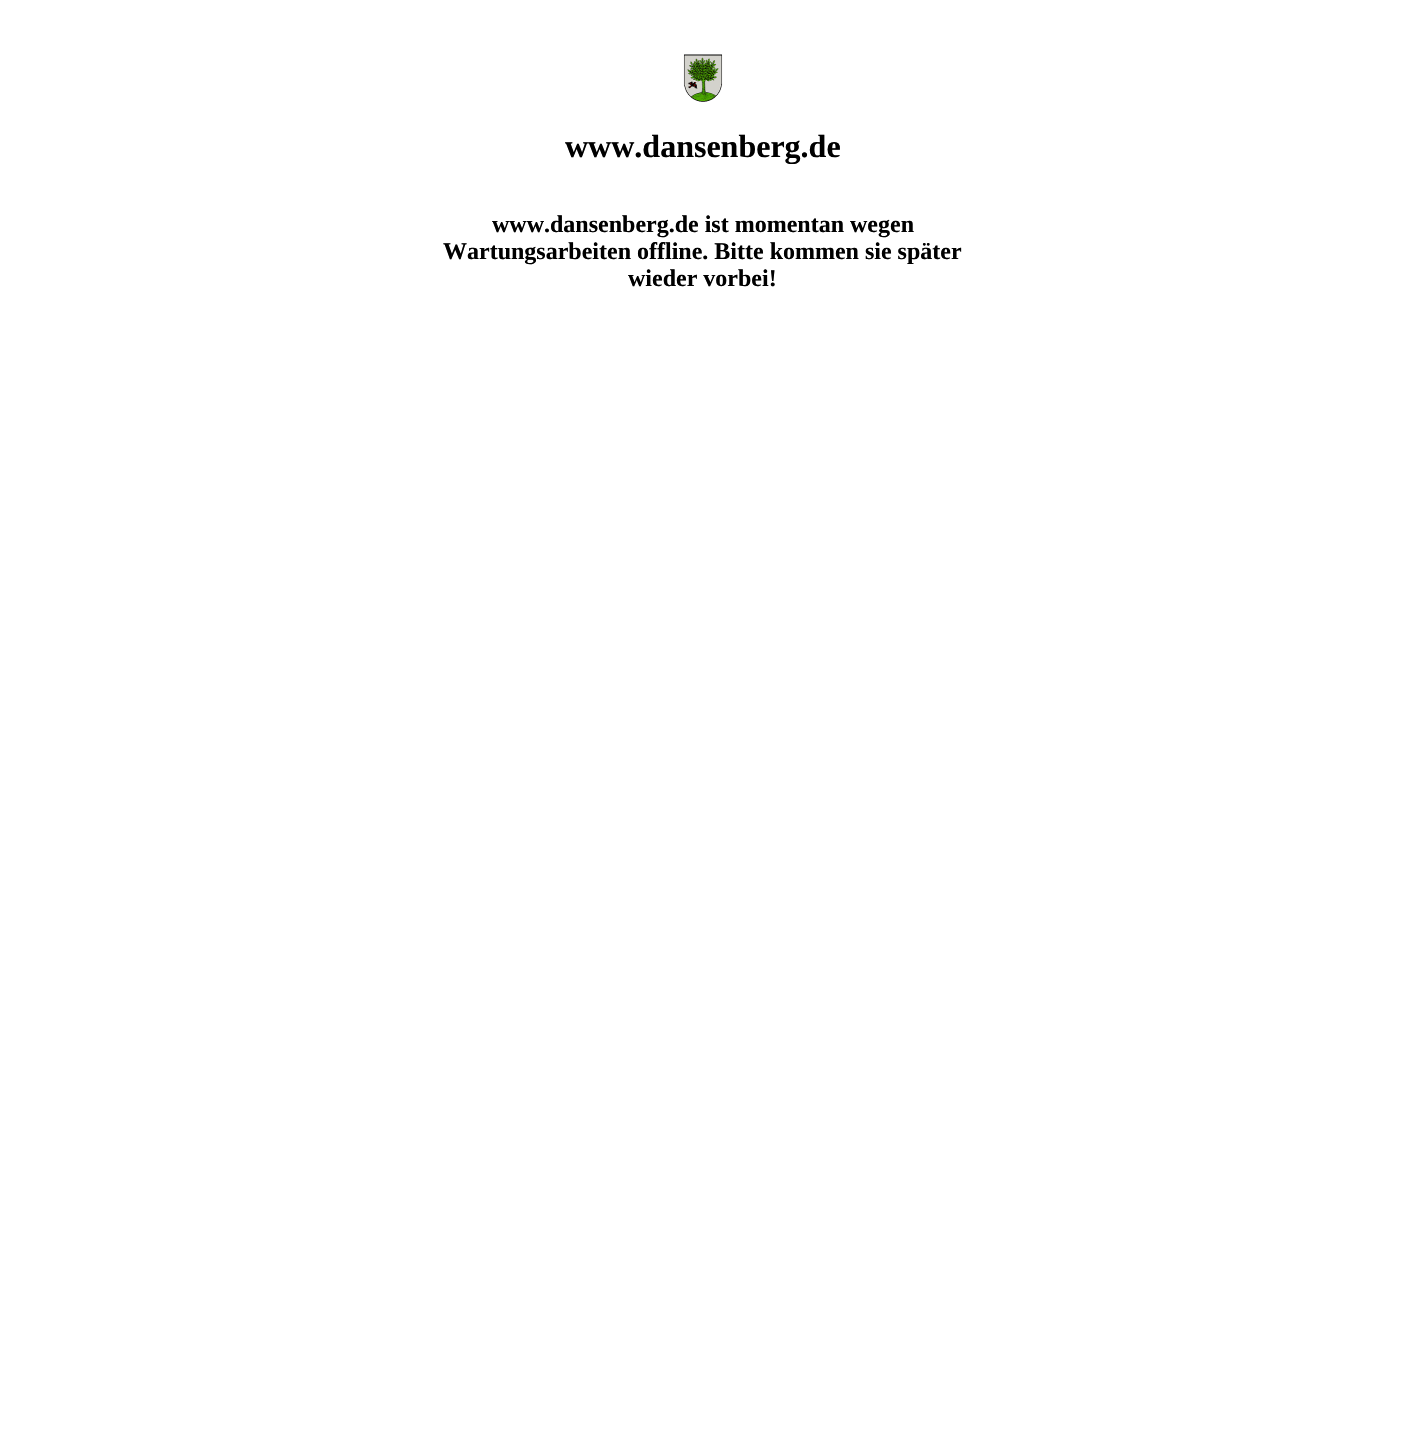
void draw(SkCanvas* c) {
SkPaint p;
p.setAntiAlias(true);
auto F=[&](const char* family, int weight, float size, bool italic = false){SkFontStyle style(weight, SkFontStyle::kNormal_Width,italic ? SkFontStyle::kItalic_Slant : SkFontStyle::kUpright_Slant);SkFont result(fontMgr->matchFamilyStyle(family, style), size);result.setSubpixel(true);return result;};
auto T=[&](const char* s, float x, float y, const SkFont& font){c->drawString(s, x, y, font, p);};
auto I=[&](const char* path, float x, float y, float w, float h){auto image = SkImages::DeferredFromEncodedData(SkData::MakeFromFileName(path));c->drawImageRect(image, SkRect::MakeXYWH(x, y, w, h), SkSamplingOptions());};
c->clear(0xffffffff);
I("1.png",683,54,40,48);
auto f1 = F("Liberation Serif",700,32);
p.setColor(0xff000000);
T("www.dansenberg.de",565,157,f1);
auto f2 = F("Liberation Serif",700,24);
T("www.dansenberg.de ist momentan wegen",492,232,f2);
T("Wartungsarbeiten offline. Bitte kommen sie später",443,259,f2);
T("wieder vorbei!",628,286,f2);
}
